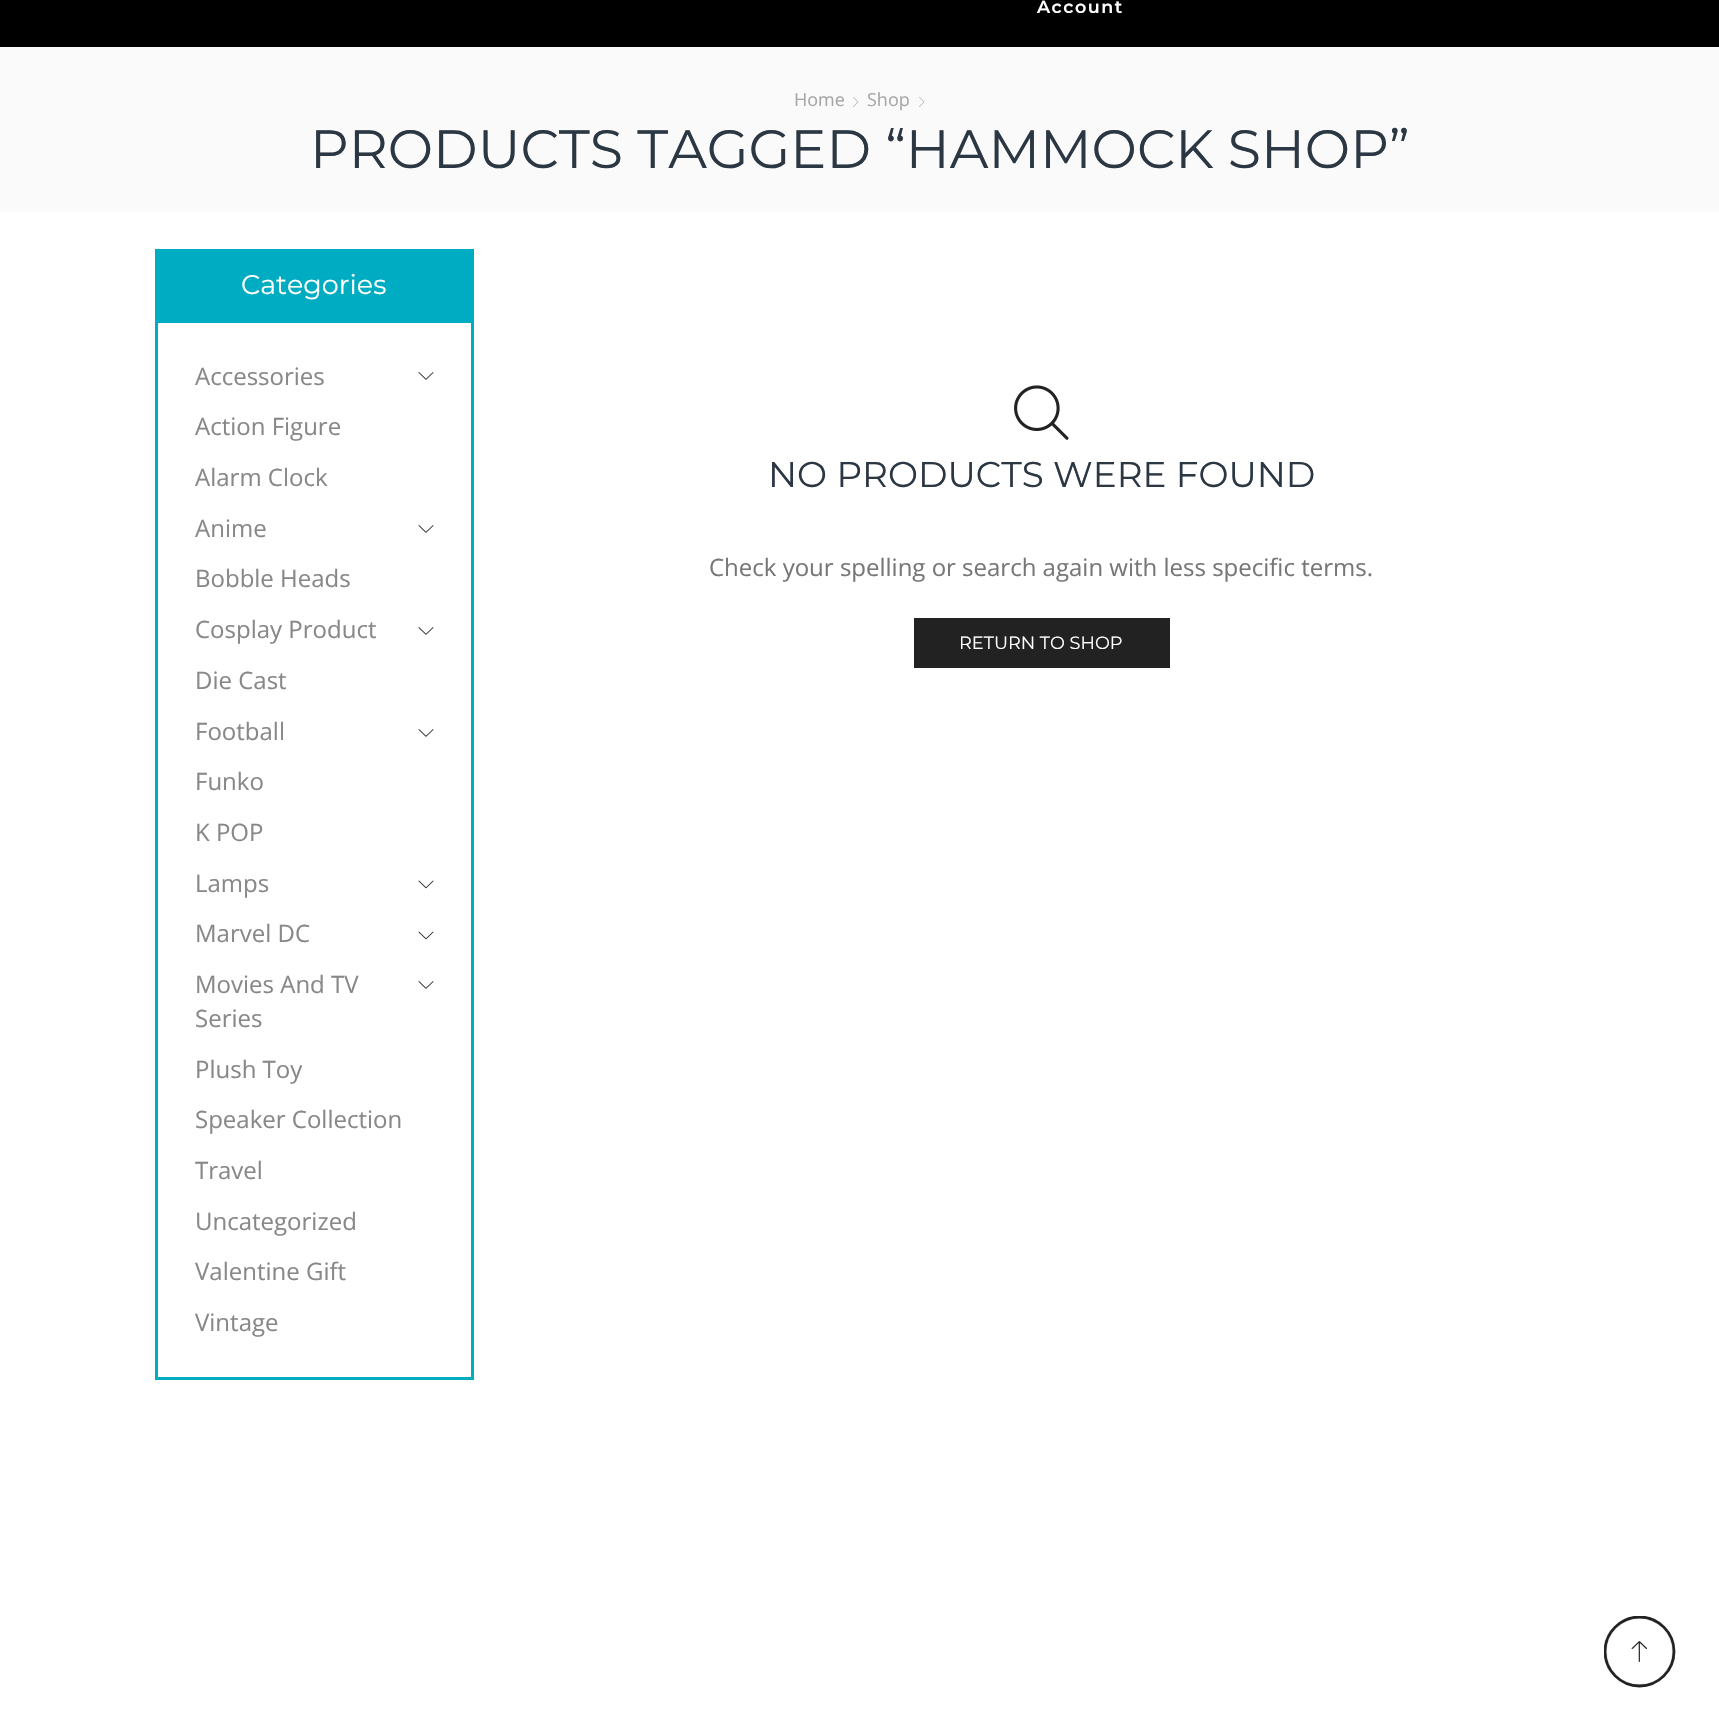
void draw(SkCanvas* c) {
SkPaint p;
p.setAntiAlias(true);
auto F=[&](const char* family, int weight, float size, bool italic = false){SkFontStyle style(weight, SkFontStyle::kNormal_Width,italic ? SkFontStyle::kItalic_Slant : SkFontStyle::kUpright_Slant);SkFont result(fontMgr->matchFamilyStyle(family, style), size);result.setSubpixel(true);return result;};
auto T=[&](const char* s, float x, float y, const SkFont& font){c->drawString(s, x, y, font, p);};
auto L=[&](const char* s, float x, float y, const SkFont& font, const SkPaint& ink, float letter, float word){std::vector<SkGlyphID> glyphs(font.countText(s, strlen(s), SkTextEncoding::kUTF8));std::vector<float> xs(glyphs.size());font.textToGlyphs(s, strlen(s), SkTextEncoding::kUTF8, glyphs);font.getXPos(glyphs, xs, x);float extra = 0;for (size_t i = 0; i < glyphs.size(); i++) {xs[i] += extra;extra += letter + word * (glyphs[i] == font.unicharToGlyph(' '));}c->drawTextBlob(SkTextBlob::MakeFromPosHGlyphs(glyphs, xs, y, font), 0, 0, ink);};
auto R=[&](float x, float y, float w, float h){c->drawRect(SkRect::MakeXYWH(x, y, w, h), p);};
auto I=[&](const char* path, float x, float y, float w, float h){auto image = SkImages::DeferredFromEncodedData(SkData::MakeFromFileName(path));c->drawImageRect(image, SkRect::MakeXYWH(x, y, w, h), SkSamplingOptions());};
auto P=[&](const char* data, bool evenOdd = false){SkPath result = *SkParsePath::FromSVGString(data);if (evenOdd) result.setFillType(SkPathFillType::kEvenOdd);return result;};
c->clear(0xffffffff);
p.setColor(0xff000000);
R(0,0,1719,47);
auto f1 = F("Montserrat",600,17.5);
p.setColor(0xffffffff);
L("Account",1037,13,f1,p,1.5,0);
p.setColor(0xfffafafa);
R(0,47,1719,165);
auto f2 = F("Open Sans",400,18);
p.setColor(0xffa6a6a6);
T("Home",794,106,f2);
I("1.png",853,97,6,10);
T("Shop",867,106,f2);
I("1.png",919,97,6,10);
auto f3 = F("Montserrat",400,54);
p.setColor(0xff2b3743);
T("PRODUCTS TAGGED “HAMMOCK SHOP”",310,168,f3);
p.setColor(0xff00acc1);
R(155,249,319,71);
auto f4 = F("Montserrat",400,27);
p.setColor(0xffffffff);
T("Categories",241,294,f4);
p.setStroke(true);
p.setStrokeWidth(3);
p.setColor(0xff00acc1);
c->drawRect(SkRect::MakeXYWH(156.5,321.5,316,1057),p);
auto f5 = F("Open Sans",400,24);
p.setStroke(false);
p.setColor(0xff888888);
T("Accessories",195,385,f5);
I("2.png",418,372,16,8);
T("Action Figure",195,435,f5);
T("Alarm Clock",195,486,f5);
T("Anime",195,537,f5);
I("2.png",418,525,16,8);
T("Bobble Heads",195,587,f5);
T("Cosplay Product",195,638,f5);
I("2.png",418,627,16,8);
T("Die Cast",195,689,f5);
T("Football",195,740,f5);
I("2.png",418,729,16,8);
T("Funko",195,790,f5);
T("K POP",195,841,f5);
T("Lamps",195,892,f5);
I("3.png",418,880,16,9);
T("Marvel DC",195,942,f5);
I("3.png",418,931,16,9);
T("Movies And TV",195,993,f5);
T("Series",195,1027,f5);
I("2.png",418,981,16,8);
T("Plush Toy",195,1078,f5);
T("Speaker Collection",195,1128,f5);
T("Travel",195,1179,f5);
T("Uncategorized",195,1230,f5);
T("Valentine Gift",195,1280,f5);
T("Vintage",195,1331,f5);
I("4.png",1014,385,55,55);
auto f6 = F("Montserrat",400,35.75);
p.setColor(0xff2b3743);
T("NO PRODUCTS WERE FOUND",768,487,f6);
p.setColor(0xff777777);
T("Check your spelling or search again with less specific terms.",709,576,f5);
p.setColor(0xff222222);
R(914,618,256,50);
auto f7 = F("Montserrat",400,17.75);
p.setColor(0xffffffff);
T("RETURN TO SHOP",959,649,f7);
p.setStroke(true);
p.setStrokeWidth(2);
p.setColor(0xffe1e1e1);
c->drawCircle(1639.5,1651.5,33.5,p);
c->save();
c->clipRect(SkRect::MakeXYWH(1604,1616,72,72));
p.setStrokeWidth(2.8);
p.setColor(0xff222222);
c->drawPath(P("M1639.5 1617c19 0 34.5 15.5 34.5 34.5c0 19-15.5 34.5-34.5 34.5c-19 0-34.5-15.5-34.5-34.5c0-19 15.5-34.5 34.5-34.5"),p);
c->restore();
I("5.png",1631,1641,16,21);
}
